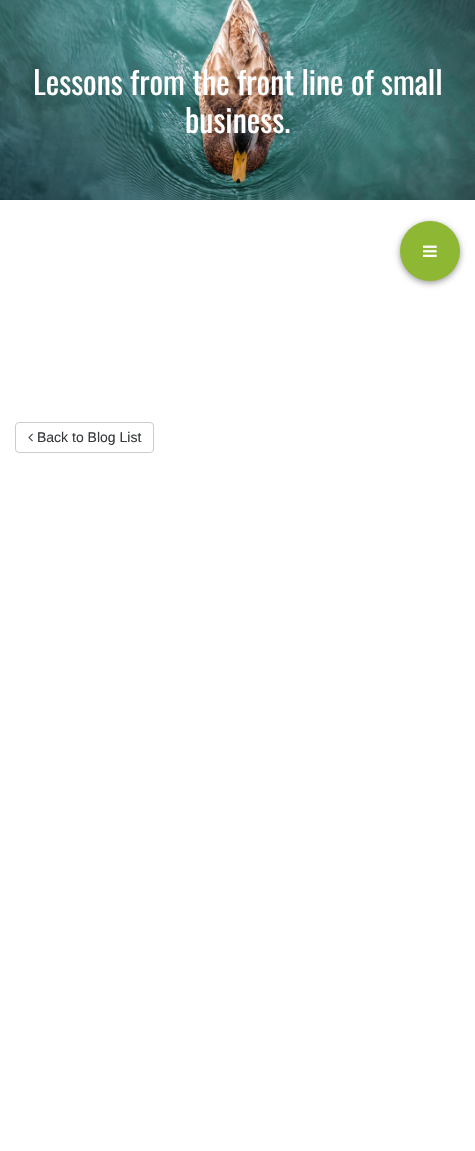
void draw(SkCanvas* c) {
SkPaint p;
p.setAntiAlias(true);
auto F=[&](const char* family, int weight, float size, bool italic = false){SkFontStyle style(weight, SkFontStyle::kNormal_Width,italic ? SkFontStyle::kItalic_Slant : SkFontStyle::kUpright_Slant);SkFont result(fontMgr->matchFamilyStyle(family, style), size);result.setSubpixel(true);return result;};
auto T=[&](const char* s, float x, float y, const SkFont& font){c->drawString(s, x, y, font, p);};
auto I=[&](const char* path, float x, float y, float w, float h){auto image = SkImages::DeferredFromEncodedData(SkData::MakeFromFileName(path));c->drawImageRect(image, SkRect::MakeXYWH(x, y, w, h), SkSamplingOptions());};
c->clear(0xffffffff);
I("1.png",0,0,475,200);
auto f1 = F("Oswald",400,32);
p.setColor(0xffffffff);
T("Lessons from the front line of small",33,95,f1);
T("business.",185,133,f1);
p.setColor(0x66000000);
p.setMaskFilter(SkMaskFilter::MakeBlur(kNormal_SkBlurStyle, 3));
c->drawRoundRect(SkRect::MakeXYWH(400,223,60,60),30,30,p);
p.setMaskFilter(nullptr);
p.setColor(0xff8eb834);
c->drawCircle(430,251,30,p);
I("2.png",423,245,14,12);
p.setStroke(true);
p.setStrokeWidth(1);
p.setColor(0xffcccccc);
c->drawRoundRect(SkRect::MakeXYWH(15.5,422.5,138,30),3.5,3.5,p);
I("3.png",28,433,5,9);
auto f2 = F("Liberation Sans",400,14);
p.setStroke(false);
p.setColor(0xff373a3c);
T("Back to Blog List",37,442,f2);
}
